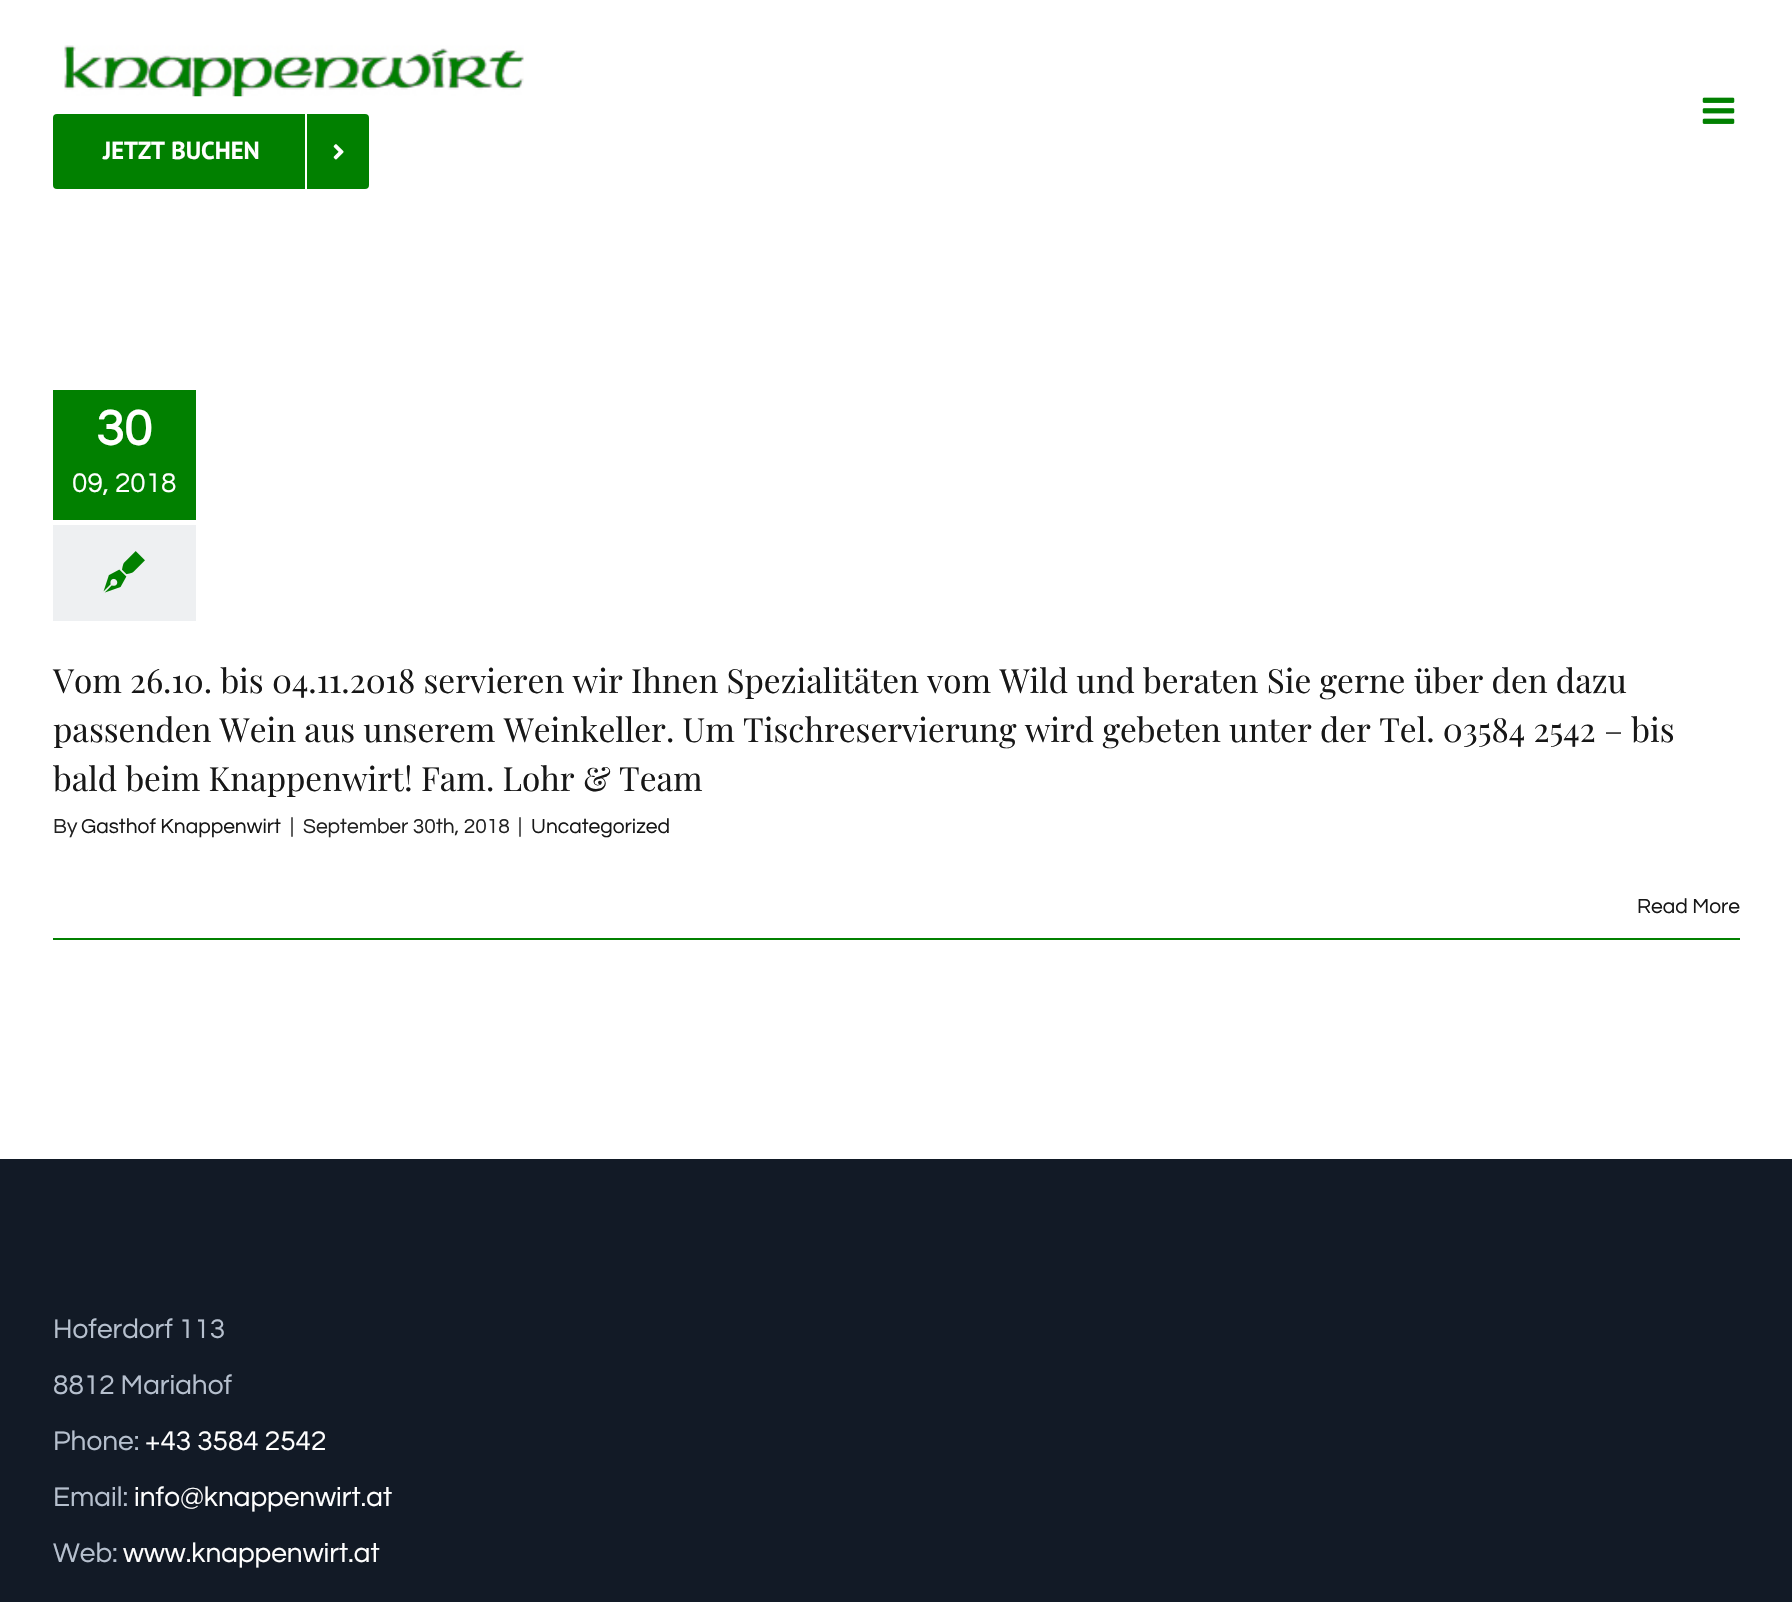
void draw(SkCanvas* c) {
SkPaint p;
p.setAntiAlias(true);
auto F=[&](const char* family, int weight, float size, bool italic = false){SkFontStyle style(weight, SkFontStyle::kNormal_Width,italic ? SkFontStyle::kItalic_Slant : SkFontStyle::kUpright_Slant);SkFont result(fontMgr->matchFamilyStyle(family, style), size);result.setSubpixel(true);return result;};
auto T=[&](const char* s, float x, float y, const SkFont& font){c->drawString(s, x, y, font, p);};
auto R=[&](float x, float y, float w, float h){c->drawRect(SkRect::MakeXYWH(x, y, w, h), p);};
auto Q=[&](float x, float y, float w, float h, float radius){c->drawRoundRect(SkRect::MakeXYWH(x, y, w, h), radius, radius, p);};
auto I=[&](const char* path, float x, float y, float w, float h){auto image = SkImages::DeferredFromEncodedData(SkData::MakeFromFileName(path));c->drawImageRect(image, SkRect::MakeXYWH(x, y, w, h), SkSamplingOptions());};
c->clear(0xffffffff);
I("1.png",1702,97,33,27);
I("2.png",64,45,460,52);
p.setColor(0xff018000);
Q(53,114,316,75,4);
auto f1 = F("PT Sans",700,24.5);
p.setColor(0xffffffff);
T("JETZT BUCHEN",103,159,f1);
R(305,114,2,75);
I("3.png",333,144,11,16);
p.setColor(0xff018000);
R(53,390,143,130);
auto f2 = F("Questrial",700,51);
p.setColor(0xffffffff);
T("30",96,445,f2);
auto f3 = F("Questrial",400,28);
T("09, 2018",72,492,f3);
p.setColor(0xffeef0f2);
R(53,525,143,96);
I("4.png",103,551,42,42);
auto f4 = F("Playfair Display",400,33.25);
p.setColor(0xff171717);
T("Vom 26.10. bis 04.11.2018 servieren wir Ihnen Spezialitäten vom Wild und beraten Sie gerne über den dazu",53,693,f4);
T("passenden Wein aus unserem Weinkeller. Um Tischreservierung wird gebeten unter der Tel. 03584 2542 – bis",53,742,f4);
T("bald beim Knappenwirt! Fam. Lohr & Team",53,791,f4);
auto f5 = F("Questrial",400,21);
p.setColor(0xff222222);
T("By",53,833,f5);
p.setColor(0xff171717);
T("Gasthof Knappenwirt",81,833,f5);
p.setColor(0xff222222);
T("|",290,833,f5);
T("September 30th, 2018",303,833,f5);
T("|",518,833,f5);
p.setColor(0xff171717);
T("Uncategorized",531,833,f5);
p.setColor(0xff018000);
R(53,938,1687,2);
p.setColor(0xff171717);
T("Read More",1637,913,f5);
p.setColor(0xff121a26);
R(0,1159,1792,443);
p.setColor(0xffb6c0ce);
T("Hoferdorf 113",53,1338,f3);
T("8812 Mariahof",53,1394,f3);
T("Phone:",53,1450,f3);
p.setColor(0xffffffff);
T("+43 3584 2542",145,1450,f3);
p.setColor(0xffb6c0ce);
T("Email:",53,1506,f3);
p.setColor(0xffffffff);
T("info@knappenwirt.at",134,1506,f3);
p.setColor(0xffb6c0ce);
T("Web:",53,1562,f3);
p.setColor(0xffffffff);
T("www.knappenwirt.at",123,1562,f3);
}
